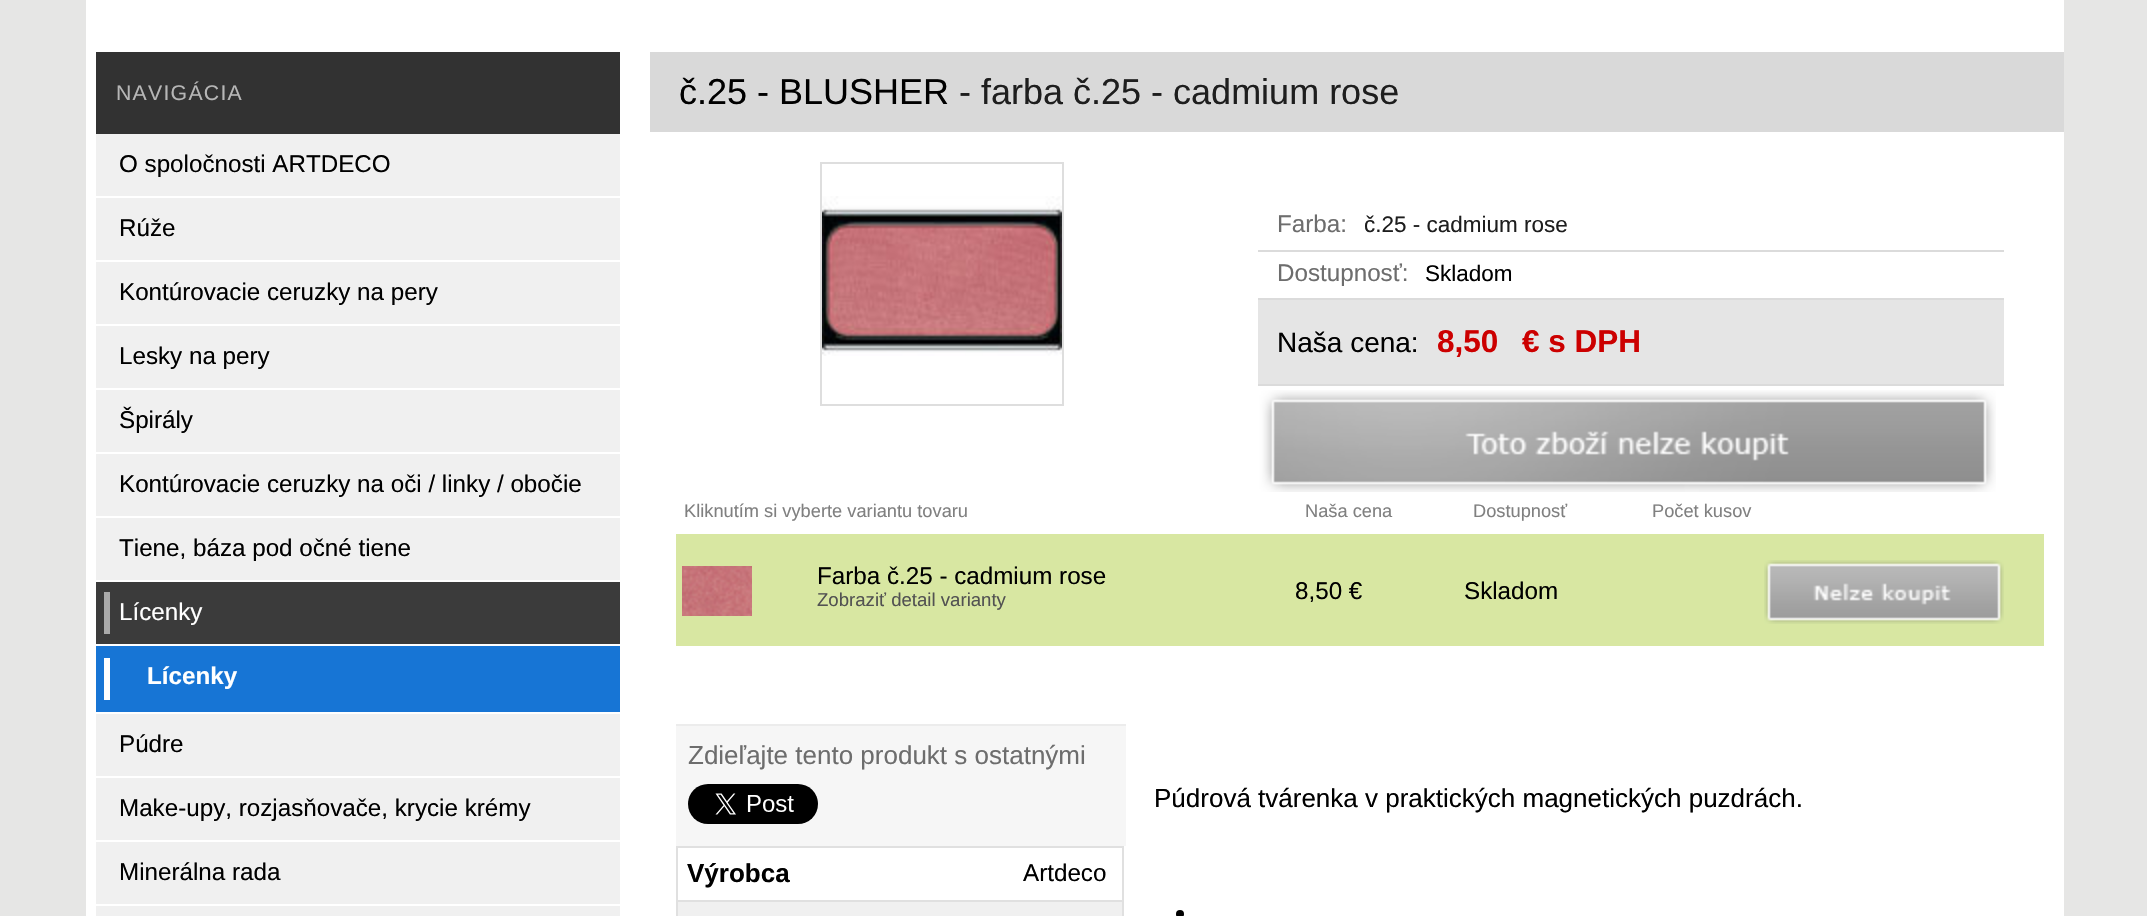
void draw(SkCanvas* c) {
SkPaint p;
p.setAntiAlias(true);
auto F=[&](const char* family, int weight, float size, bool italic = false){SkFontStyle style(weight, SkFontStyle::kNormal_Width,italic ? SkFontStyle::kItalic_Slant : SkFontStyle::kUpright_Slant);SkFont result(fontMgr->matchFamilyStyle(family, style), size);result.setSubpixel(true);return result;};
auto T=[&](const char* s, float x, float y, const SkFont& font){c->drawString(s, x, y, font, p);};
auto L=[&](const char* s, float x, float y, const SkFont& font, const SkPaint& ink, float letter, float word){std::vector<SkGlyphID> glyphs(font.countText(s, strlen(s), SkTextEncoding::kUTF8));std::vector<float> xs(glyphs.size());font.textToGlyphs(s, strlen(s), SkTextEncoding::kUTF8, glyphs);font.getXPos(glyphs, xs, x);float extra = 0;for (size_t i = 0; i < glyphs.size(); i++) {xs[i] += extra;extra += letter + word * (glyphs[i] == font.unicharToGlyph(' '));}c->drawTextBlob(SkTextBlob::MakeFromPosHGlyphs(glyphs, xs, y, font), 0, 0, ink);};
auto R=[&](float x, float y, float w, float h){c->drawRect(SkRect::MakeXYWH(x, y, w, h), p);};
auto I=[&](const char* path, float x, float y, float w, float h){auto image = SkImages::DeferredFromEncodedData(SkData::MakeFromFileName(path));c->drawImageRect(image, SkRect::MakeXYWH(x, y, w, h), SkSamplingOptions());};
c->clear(0xffe6e6e5);
p.setColor(0xffffffff);
R(86,0,1978,916);
p.setColor(0xff323232);
R(96,52,524,82);
auto f1 = F("Liberation Sans",400,21.25);
p.setColor(0xffb6b6b6);
L("NAVIGÁCIA",116,100,f1,p,1.25,0);
p.setColor(0xfff0f0f0);
R(96,134,524,62);
auto f2 = F("Liberation Sans",400,24.2);
p.setColor(0xff000000);
T("O spoločnosti ARTDECO",119,172,f2);
p.setColor(0xfff0f0f0);
R(96,198,524,62);
p.setColor(0xff000000);
T("Rúže",119,236,f2);
p.setColor(0xfff0f0f0);
R(96,262,524,62);
p.setColor(0xff000000);
T("Kontúrovacie ceruzky na pery",119,300,f2);
p.setColor(0xfff0f0f0);
R(96,326,524,62);
p.setColor(0xff000000);
T("Lesky na pery",119,364,f2);
p.setColor(0xfff0f0f0);
R(96,390,524,62);
p.setColor(0xff000000);
T("Špirály",119,428,f2);
p.setColor(0xfff0f0f0);
R(96,454,524,62);
p.setColor(0xff000000);
T("Kontúrovacie ceruzky na oči / linky / obočie",119,492,f2);
p.setColor(0xfff0f0f0);
R(96,518,524,62);
p.setColor(0xff000000);
T("Tiene, báza pod očné tiene",119,556,f2);
p.setColor(0xff3b3b3b);
R(96,582,524,62);
p.setColor(0xffaaaaaa);
R(104,592,6,42);
p.setColor(0xffffffff);
T("Lícenky",119,620,f2);
p.setColor(0xff1775d5);
R(96,646,524,66);
p.setColor(0xffffffff);
R(104,658,6,42);
auto f3 = F("Liberation Sans",700,24.2);
T("Lícenky",147,684,f3);
p.setColor(0xfff0f0f0);
R(96,714,524,62);
p.setColor(0xff000000);
T("Púdre",119,752,f2);
p.setColor(0xfff0f0f0);
R(96,778,524,62);
p.setColor(0xff000000);
T("Make-upy, rozjasňovače, krycie krémy",119,816,f2);
p.setColor(0xfff0f0f0);
R(96,842,524,62);
p.setColor(0xff000000);
T("Minerálna rada",119,880,f2);
p.setColor(0xfff0f0f0);
R(96,906,524,10);
p.setColor(0xffd9d9d9);
R(650,52,1414,80);
auto f4 = F("Liberation Sans",400,36);
p.setColor(0xff000000);
T("č.25 - BLUSHER",679,104,f4);
p.setColor(0xff1e1e1e);
T("- farba č.25 - cadmium rose",959,104,f4);
p.setStroke(true);
p.setStrokeWidth(2);
p.setColor(0xffdedede);
c->drawRect(SkRect::MakeXYWH(821,163,242,242),p);
I("1.png",822,196,240,160);
p.setStroke(false);
p.setColor(0xffdbdbdb);
R(1258,250,746,2);
p.setColor(0xff6d6d6d);
T("Farba:",1277,232,f2);
auto f5 = F("Liberation Sans",400,22.5);
p.setColor(0xff1e1e1e);
T("č.25 - cadmium rose",1364,232,f5);
p.setColor(0xffdbdbdb);
R(1258,298,746,2);
p.setColor(0xff6d6d6d);
T("Dostupnosť:",1277,281,f2);
p.setColor(0xff000000);
T("Skladom",1425,281,f5);
p.setColor(0xffe5e5e5);
R(1258,300,746,84);
p.setColor(0xffdbdbdb);
R(1258,384,746,2);
auto f6 = F("Liberation Sans",400,28);
p.setColor(0xff000000);
T("Naša cena:",1277,352,f6);
auto f7 = F("Liberation Sans",700,31.5);
p.setColor(0xffcc0000);
T("8,50",1437,352,f7);
T("€ s DPH",1522,352,f7);
I("2.png",1258,390,738,102);
auto f8 = F("Liberation Sans",400,18.25);
p.setColor(0xff808080);
T("Kliknutím si vyberte variantu tovaru",684,517,f8);
T("Naša cena",1305,517,f8);
T("Dostupnosť",1473,517,f8);
T("Počet kusov",1652,517,f8);
p.setColor(0xffd8e7a2);
R(676,534,1368,112);
I("3.png",682,566,70,50);
p.setColor(0xff000000);
T("Farba č.25 - cadmium rose",817,584,f2);
auto f9 = F("Liberation Sans",400,18.6);
p.setColor(0xff525252);
T("Zobraziť detail varianty",817,606,f9);
p.setColor(0xff000000);
T("8,50 €",1295,599,f2);
T("Skladom",1464,599,f2);
I("4.png",1764,560,240,64);
p.setColor(0xfff6f6f6);
R(676,726,450,120);
p.setColor(0xffececec);
R(676,724,450,2);
auto f10 = F("Liberation Sans",400,26);
p.setColor(0xff6d6d6d);
T("Zdieľajte tento produkt s ostatnými",688,764,f10);
I("5.png",688,784,130,40);
p.setColor(0xffe0e0e0);
R(676,846,448,2);
R(1122,846,2,70);
R(676,846,2,70);
auto f11 = F("Liberation Sans",700,26);
p.setColor(0xff000000);
T("Výrobca",687,882,f11);
p.setColor(0xffe0e0e0);
R(676,900,448,2);
p.setColor(0xff000000);
T("Artdeco",1023,881,f2);
p.setColor(0xfff0f0f0);
R(678,902,444,14);
p.setColor(0xff000000);
T("Púdrová tvárenka v praktických magnetických puzdrách.",1154,807,f10);
c->drawCircle(1180,914,4,p);
}
